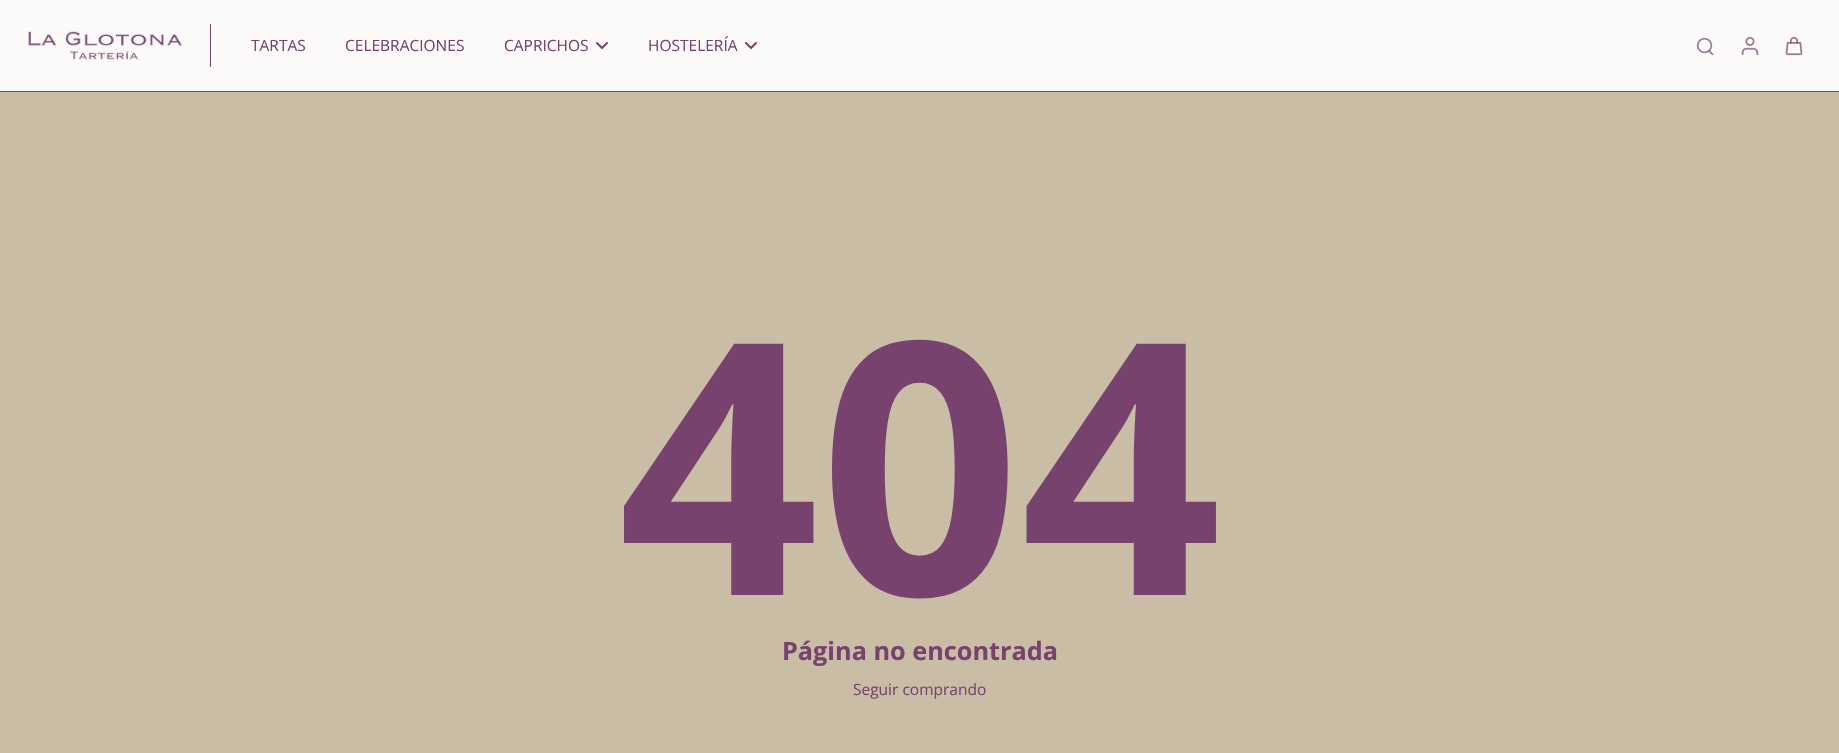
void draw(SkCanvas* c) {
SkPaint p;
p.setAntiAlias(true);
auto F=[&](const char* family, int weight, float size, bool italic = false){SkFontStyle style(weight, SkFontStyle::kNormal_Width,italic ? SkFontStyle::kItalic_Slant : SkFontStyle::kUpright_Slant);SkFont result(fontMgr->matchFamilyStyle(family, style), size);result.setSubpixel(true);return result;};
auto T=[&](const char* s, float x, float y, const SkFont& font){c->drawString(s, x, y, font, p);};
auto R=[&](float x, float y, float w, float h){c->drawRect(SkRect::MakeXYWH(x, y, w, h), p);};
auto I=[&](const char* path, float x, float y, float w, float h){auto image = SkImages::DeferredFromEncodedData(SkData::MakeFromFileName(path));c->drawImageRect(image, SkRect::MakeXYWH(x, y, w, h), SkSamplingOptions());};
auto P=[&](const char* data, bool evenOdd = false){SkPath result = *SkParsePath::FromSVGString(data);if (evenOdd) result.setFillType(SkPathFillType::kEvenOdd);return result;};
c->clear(0xffcabda5);
p.setColor(0xfffbfaf8);
R(0,0,1839,91);
p.setColor(0xff77426e);
R(210,24,1,43);
I("1.png",27,31,156,29);
auto f1 = F("Open Sans",400,15.5);
T("TARTAS",251,51,f1);
T("CELEBRACIONES",345,51,f1);
T("CAPRICHOS",504,51,f1);
p.setStroke(true);
p.setStrokeWidth(2);
p.setStrokeCap(SkPaint::kRound_Cap);
p.setStrokeJoin(SkPaint::kRound_Join);
c->drawPath(P("M597 43l5 5l5-5"),p);
p.setStroke(false);
T("HOSTELERÍA",648,51,f1);
p.setStroke(true);
c->drawPath(P("M746 43l5 5l5-5"),p);
I("2.png",1696,37,18,19);
I("3.png",1741,36,18,20);
I("4.png",1785,36,18,20);
p.setStroke(false);
R(0,91,1839,1);
auto f2 = F("Open Sans",700,352);
T("404",618,595,f2);
auto f3 = F("Open Sans",700,25.25);
T("Página no encontrada",782,660,f3);
T("Seguir comprando",853,695,f1);
}
